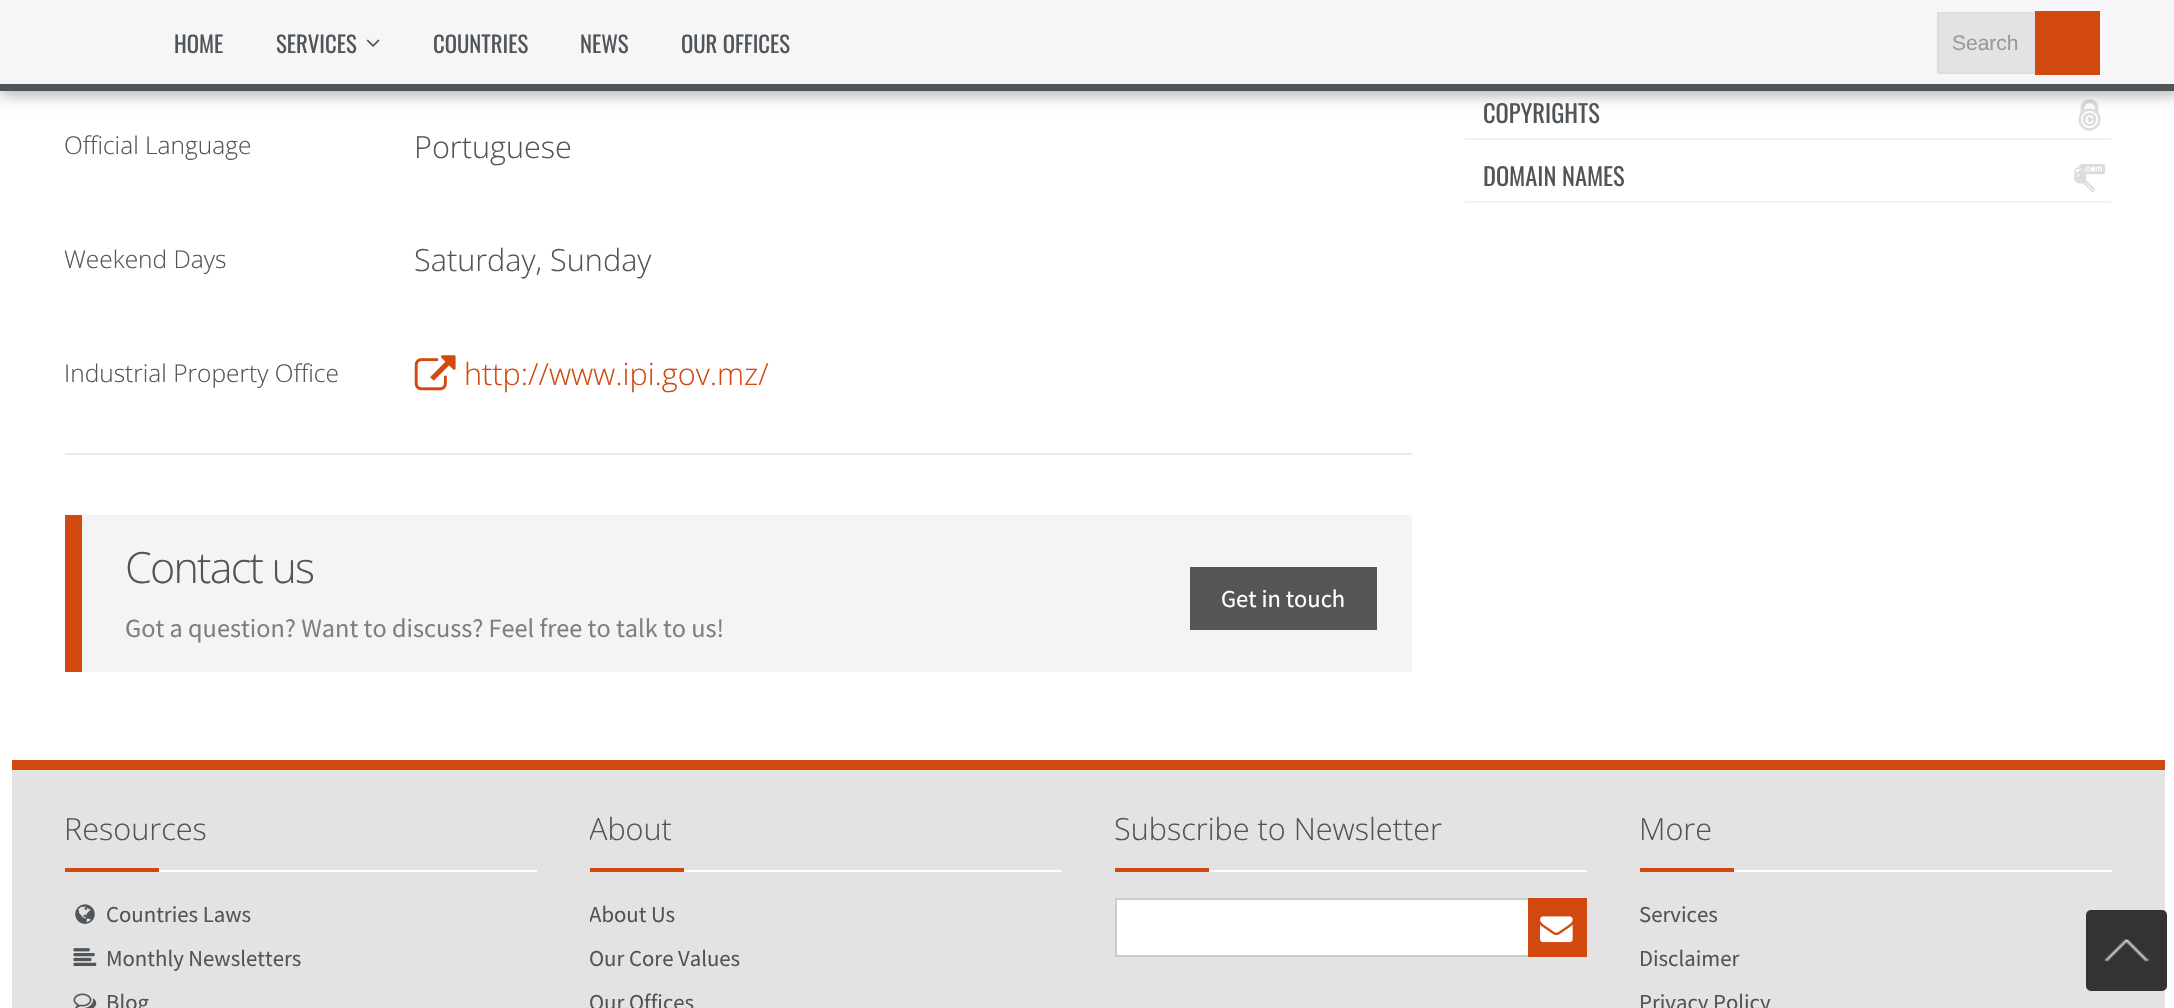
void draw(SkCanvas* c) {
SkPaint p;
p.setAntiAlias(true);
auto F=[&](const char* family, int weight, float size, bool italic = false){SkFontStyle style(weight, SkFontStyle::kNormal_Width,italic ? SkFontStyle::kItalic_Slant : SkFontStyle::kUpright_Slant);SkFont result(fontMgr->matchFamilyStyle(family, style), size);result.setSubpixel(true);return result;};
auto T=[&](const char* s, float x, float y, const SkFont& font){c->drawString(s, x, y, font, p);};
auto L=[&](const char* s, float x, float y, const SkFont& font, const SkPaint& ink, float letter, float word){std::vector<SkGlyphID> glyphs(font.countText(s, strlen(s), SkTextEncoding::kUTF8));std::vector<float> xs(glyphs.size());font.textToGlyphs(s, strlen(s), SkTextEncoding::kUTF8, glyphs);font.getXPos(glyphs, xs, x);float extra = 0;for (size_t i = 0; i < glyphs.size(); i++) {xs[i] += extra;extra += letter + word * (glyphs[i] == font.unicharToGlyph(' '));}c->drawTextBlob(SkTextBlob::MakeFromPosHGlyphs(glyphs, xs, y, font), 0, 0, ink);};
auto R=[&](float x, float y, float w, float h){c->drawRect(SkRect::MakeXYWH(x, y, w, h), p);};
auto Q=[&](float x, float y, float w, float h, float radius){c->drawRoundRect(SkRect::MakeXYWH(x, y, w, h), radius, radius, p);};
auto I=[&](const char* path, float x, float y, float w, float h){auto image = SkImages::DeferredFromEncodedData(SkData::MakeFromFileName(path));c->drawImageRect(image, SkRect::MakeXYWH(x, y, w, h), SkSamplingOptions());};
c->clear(0xffffffff);
I("3.png",2078,99,23,32);
p.setColor(0x4d000000);
p.setMaskFilter(SkMaskFilter::MakeBlur(kNormal_SkBlurStyle, 7));
c->drawRect(SkRect::MakeXYWH(0,0,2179,95),p);
p.setMaskFilter(nullptr);
p.setColor(0xfff6f6f6);
R(0,0,2174,84);
p.setColor(0xff50555a);
R(0,84,2174,7);
auto f1 = F("Oswald",400,22.75);
T("HOME",174,53,f1);
T("SERVICES",276,53,f1);
I("1.png",366,39,14,8);
T("COUNTRIES",433,53,f1);
T("NEWS",580,53,f1);
T("OUR OFFICES",681,53,f1);
p.setColor(0xffe3e3e3);
R(1939,14,96,58);
p.setStroke(true);
p.setStrokeWidth(2);
p.setColor(0xffdddddd);
c->drawRect(SkRect::MakeXYWH(1938,13,161,60),p);
auto f2 = F("Liberation Sans",400,21);
p.setStroke(false);
p.setColor(0xff999999);
T("Search",1952,50,f2);
p.setColor(0xffd2490f);
R(2035,11,65,64);
auto f3 = F("Open Sans",300,24.5);
p.setColor(0xff50555a);
T("Official Language",64,154,f3);
auto f4 = F("Open Sans",300,30.6);
T("Portuguese",414,158,f4);
T("Weekend Days",64,268,f3);
T("Saturday, Sunday",414,271,f4);
T("Industrial Property Office",64,382,f3);
I("2.png",414,355,42,36);
p.setColor(0xffd2490f);
T("http://www.ipi.gov.mz/",464,385,f4);
p.setColor(0xffebebeb);
R(65,453,1347,2);
p.setColor(0xfff4f4f4);
R(82,515,1330,157);
p.setColor(0xffd2490f);
R(65,515,17,157);
auto f5 = F("Open Sans",300,43);
p.setColor(0xff50555a);
L("Contact us",125,583,f5,p,-1.75,0);
auto f6 = F("Source Sans Pro",400,26.25);
p.setColor(0xff7f7f7f);
T("Got a question? Want to discuss? Feel free to talk to us!",125,637,f6);
p.setColor(0xff555555);
R(1190,567,187,63);
auto f7 = F("Source Sans Pro",400,24.5);
p.setColor(0xffffffff);
T("Get in touch",1221,607,f7);
p.setColor(0xfff2f2f2);
R(1465,138,646,2);
auto f8 = F("Oswald",400,24.5);
p.setColor(0xff50555a);
T("COPYRIGHTS",1483,123,f8);
p.setColor(0xfff2f2f2);
R(1465,201,646,2);
p.setColor(0xff50555a);
T("DOMAIN NAMES",1483,186,f8);
I("4.png",2074,164,32,28);
p.setColor(0xffe3e3e3);
R(12,770,2153,238);
p.setColor(0xffd2490f);
R(12,760,2153,10);
p.setColor(0xff50555a);
T("Resources",64,840,f4);
p.setColor(0xffd2490f);
R(65,868,94,4);
p.setColor(0xffffffff);
R(159,870,378,2);
I("5.png",75,904,20,20);
auto f9 = F("Source Sans Pro",400,22.75);
p.setColor(0xff50555a);
T("Countries Laws",106,922,f9);
I("6.png",73,948,24,18);
T("Monthly Newsletters",106,966,f9);
I("7.png",73,993,24,15);
T("Blog",106,1010,f9);
c->save();
c->clipRect(SkRect::MakeXYWH(590,805,472,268));
T("About",589,840,f4);
c->restore();
p.setColor(0xffd2490f);
R(590,868,94,4);
p.setColor(0xffffffff);
R(684,870,378,2);
c->save();
c->clipRect(SkRect::MakeXYWH(590,805,472,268));
p.setColor(0xff50555a);
T("About Us",589,922,f9);
c->restore();
T("Our Core Values",589,966,f9);
T("Our Offices",589,1010,f9);
T("Subscribe to Newsletter",1114,840,f4);
p.setColor(0xffd2490f);
R(1115,868,94,4);
p.setColor(0xffffffff);
R(1209,870,378,2);
R(1117,900,411,55);
p.setStroke(true);
p.setColor(0xffcccccc);
c->drawRect(SkRect::MakeXYWH(1116,899,414,57),p);
p.setStroke(false);
p.setColor(0xffd2490f);
R(1528,898,59,59);
I("8.png",1540,916,33,27);
p.setColor(0xff50555a);
T("More",1639,840,f4);
p.setColor(0xffd2490f);
R(1640,868,94,4);
p.setColor(0xffffffff);
R(1734,870,378,2);
p.setColor(0xff50555a);
T("Services",1639,922,f9);
T("Disclaimer",1639,966,f9);
T("Privacy Policy",1639,1010,f9);
p.setColor(0xff333333);
Q(2086,910,81,81,5);
I("9.png",2104,939,46,23);
}
